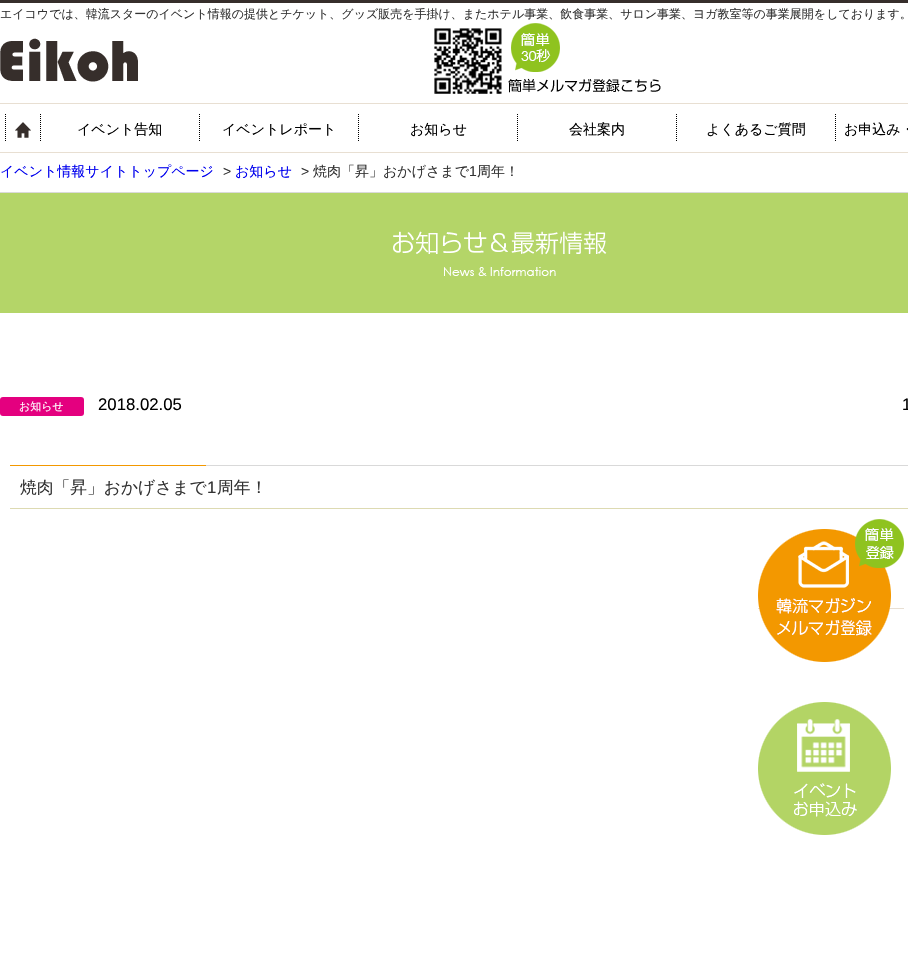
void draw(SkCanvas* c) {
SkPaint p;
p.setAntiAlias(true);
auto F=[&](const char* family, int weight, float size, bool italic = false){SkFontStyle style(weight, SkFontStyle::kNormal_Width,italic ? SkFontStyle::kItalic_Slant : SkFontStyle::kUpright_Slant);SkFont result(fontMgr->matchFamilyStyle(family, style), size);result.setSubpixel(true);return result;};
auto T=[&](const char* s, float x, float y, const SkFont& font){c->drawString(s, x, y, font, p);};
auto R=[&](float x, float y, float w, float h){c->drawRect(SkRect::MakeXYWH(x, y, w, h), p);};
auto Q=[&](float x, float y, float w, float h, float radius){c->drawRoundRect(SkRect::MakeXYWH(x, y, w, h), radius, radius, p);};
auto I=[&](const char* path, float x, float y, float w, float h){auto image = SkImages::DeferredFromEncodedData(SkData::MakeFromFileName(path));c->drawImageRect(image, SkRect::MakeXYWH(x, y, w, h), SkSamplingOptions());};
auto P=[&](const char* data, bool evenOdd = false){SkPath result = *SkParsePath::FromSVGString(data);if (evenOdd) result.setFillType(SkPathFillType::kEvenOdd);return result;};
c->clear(0xffffffff);
p.setColor(0xff362e2b);
R(0,0,908,3);
auto f1 = F("WenQuanYi Zen Hei",500,12);
p.setColor(0xff333333);
T("エイコウでは、韓流スターのイベント情報の提供とチケット、グッズ販売を手掛け、またホテル事業、飲食事業、サロン事業、ヨガ教室等の事業展開をしております。",0,18,f1);
I("1.png",0,38,138,44);
I("2.png",434,23,227,71);
p.setColor(0xffe8dfd2);
R(0,103,908,1);
R(0,152,908,1);
p.setStroke(true);
p.setStrokeWidth(1);
p.setColor(0xff000000);
p.setPathEffect(SkDashPathEffect::Make({{1,1}}, 0));
c->drawPath(P("M40.5 114v28m-35-28v28"),p);
p.setPathEffect(nullptr);
I("3.png",15,122,16,16);
p.setPathEffect(SkDashPathEffect::Make({{1,1}}, 0));
c->drawPath(P("M199.5 114v28"),p);
p.setPathEffect(nullptr);
auto f2 = F("WenQuanYi Zen Hei",500,14);
p.setStroke(false);
T("イベント告知",77,134,f2);
p.setStroke(true);
p.setPathEffect(SkDashPathEffect::Make({{1,1}}, 0));
c->drawPath(P("M358.5 114v28"),p);
p.setPathEffect(nullptr);
p.setStroke(false);
T("イベントレポート",222,134,f2);
p.setStroke(true);
p.setPathEffect(SkDashPathEffect::Make({{1,1}}, 0));
c->drawPath(P("M517.5 114v28"),p);
p.setPathEffect(nullptr);
p.setStroke(false);
T("お知らせ",410,134,f2);
p.setStroke(true);
p.setPathEffect(SkDashPathEffect::Make({{1,1}}, 0));
c->drawPath(P("M676.5 114v28"),p);
p.setPathEffect(nullptr);
p.setStroke(false);
T("会社案内",569,134,f2);
p.setStroke(true);
p.setPathEffect(SkDashPathEffect::Make({{1,1}}, 0));
c->drawPath(P("M835.5 114v28"),p);
p.setPathEffect(nullptr);
p.setStroke(false);
T("よくあるご質問",706,134,f2);
T("お申込み・",844,134,f2);
p.setColor(0xffdadada);
R(0,192,908,1);
p.setColor(0xff0000ee);
T("イベント情報サイトトップページ",0,176,f2);
auto f3 = F("Liberation Sans",400,14);
p.setColor(0xff333333);
T(">",223,176,f3);
p.setColor(0xff0000ee);
T("お知らせ",235,176,f2);
p.setColor(0xff333333);
T(">",301,176,f3);
T("焼肉「昇」おかげさまで",313,176,f2);
T("1",469,176,f3);
T("周年！",477,176,f2);
p.setColor(0xffb4d568);
R(0,193,908,120);
I("4.png",393,231,214,45);
p.setColor(0xffe4007f);
Q(0,397,84,19,3);
auto f4 = F("WenQuanYi Zen Hei",500,11);
p.setColor(0xffffffff);
T("お知らせ",19,410,f4);
auto f5 = F("Liberation Sans",400,16.75);
p.setColor(0xff000000);
T("2018.02.05",98,410,f5);
T("1",902,410,f5);
p.setColor(0xffd9d9d9);
R(206,465,702,1);
p.setColor(0xffdddab2);
R(10,508,898,1);
p.setColor(0xfff39800);
R(10,465,196,1);
auto f6 = F("WenQuanYi Zen Hei",500,16.75);
p.setColor(0xff333333);
T("焼肉「昇」おかげさまで",20,493,f6);
T("1",207,493,f5);
T("周年！",217,493,f6);
I("5.png",758,519,146,143);
I("6.png",758,702,133,133);
}
